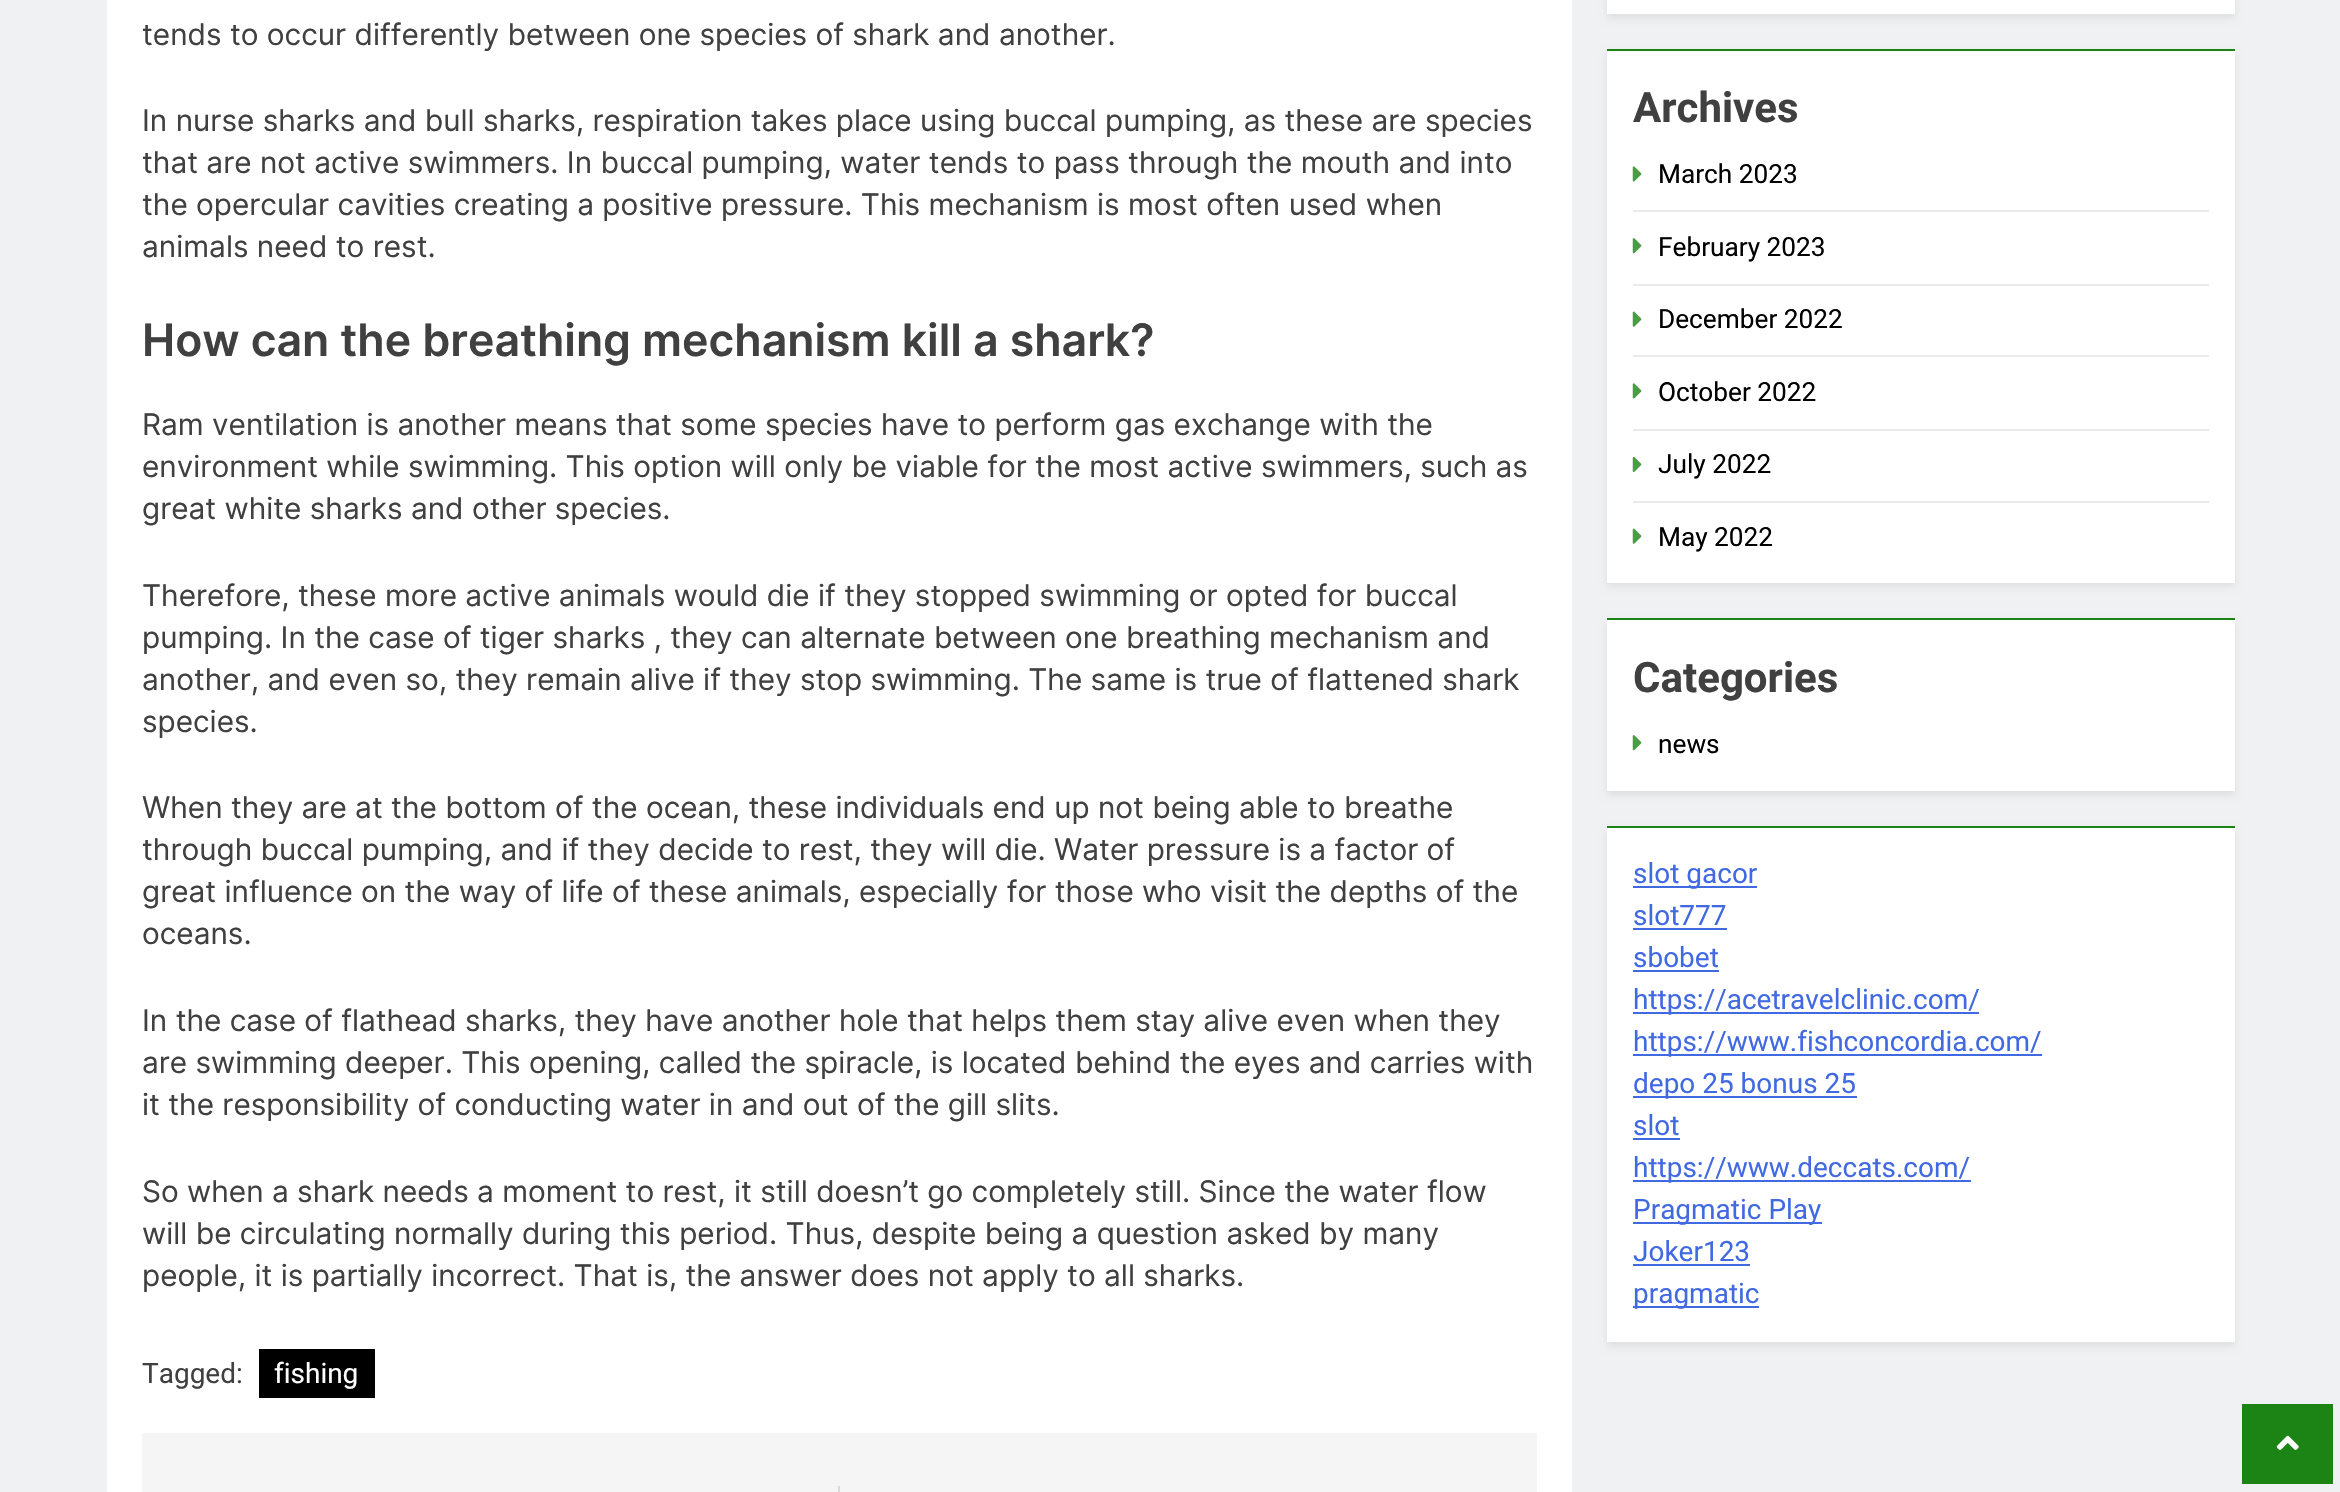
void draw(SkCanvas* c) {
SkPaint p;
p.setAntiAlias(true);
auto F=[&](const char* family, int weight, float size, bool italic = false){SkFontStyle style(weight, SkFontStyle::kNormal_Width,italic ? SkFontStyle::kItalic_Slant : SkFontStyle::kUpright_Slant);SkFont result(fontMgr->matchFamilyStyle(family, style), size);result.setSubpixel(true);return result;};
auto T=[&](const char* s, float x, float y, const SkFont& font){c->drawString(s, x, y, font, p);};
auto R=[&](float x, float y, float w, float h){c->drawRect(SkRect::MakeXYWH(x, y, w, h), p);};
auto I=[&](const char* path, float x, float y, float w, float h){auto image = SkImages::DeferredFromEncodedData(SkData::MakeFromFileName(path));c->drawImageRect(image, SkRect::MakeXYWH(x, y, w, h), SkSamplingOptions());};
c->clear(0xfff0f1f2);
p.setColor(0xffffffff);
R(107,0,1465,1492);
auto f1 = F("Inter",400,29.75);
p.setColor(0xff404040);
T("tends to occur differently between one species of shark and another.",142,45,f1);
T("In nurse sharks and bull sharks, respiration takes place using buccal pumping, as these are species",142,131,f1);
T("that are not active swimmers. In buccal pumping, water tends to pass through the mouth and into",142,173,f1);
T("the opercular cavities creating a positive pressure. This mechanism is most often used when",142,215,f1);
T("animals need to rest.",142,257,f1);
auto f2 = F("Inter",600,44.6);
T("How can the breathing mechanism kill a shark?",142,356,f2);
T("Ram ventilation is another means that some species have to perform gas exchange with the",142,435,f1);
T("environment while swimming. This option will only be viable for the most active swimmers, such as",142,477,f1);
T("great white sharks and other species.",142,519,f1);
T("Therefore, these more active animals would die if they stopped swimming or opted for buccal",142,606,f1);
T("pumping. In the case of tiger sharks , they can alternate between one breathing mechanism and",142,648,f1);
T("another, and even so, they remain alive if they stop swimming. The same is true of flattened shark",142,690,f1);
T("species.",142,732,f1);
T("When they are at the bottom of the ocean, these individuals end up not being able to breathe",142,818,f1);
T("through buccal pumping, and if they decide to rest, they will die. Water pressure is a factor of",142,860,f1);
T("great influence on the way of life of these animals, especially for those who visit the depths of the",142,902,f1);
T("oceans.",142,944,f1);
T("In the case of flathead sharks, they have another hole that helps them stay alive even when they",142,1031,f1);
T("are swimming deeper. This opening, called the spiracle, is located behind the eyes and carries with",142,1073,f1);
T("it the responsibility of conducting water in and out of the gill slits.",142,1115,f1);
T("So when a shark needs a moment to rest, it still doesn’t go completely still. Since the water flow",142,1202,f1);
T("will be circulating normally during this period. Thus, despite being a question asked by many",142,1244,f1);
T("people, it is partially incorrect. That is, the answer does not apply to all sharks.",142,1286,f1);
auto f3 = F("Roboto",400,28);
T("Tagged:",142,1383,f3);
p.setColor(0xff000000);
R(259,1349,116,49);
p.setColor(0xffffffff);
T("fishing",274,1383,f3);
p.setColor(0xfff5f5f5);
R(142,1433,1395,59);
p.setColor(0xffd9d9d9);
R(838,1486,2,6);
p.setColor(0x14000000);
p.setMaskFilter(SkMaskFilter::MakeBlur(kNormal_SkBlurStyle, 3.5));
c->drawRect(SkRect::MakeXYWH(1607,-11,628,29),p);
p.setMaskFilter(nullptr);
p.setColor(0xffffffff);
R(1607,0,628,14);
p.setColor(0x14000000);
p.setMaskFilter(SkMaskFilter::MakeBlur(kNormal_SkBlurStyle, 3.5));
c->drawRect(SkRect::MakeXYWH(1607,54,628,532),p);
p.setMaskFilter(nullptr);
p.setColor(0xffffffff);
R(1607,51,628,532);
p.setColor(0xff1b8415);
R(1607,49,628,2);
auto f4 = F("Roboto",700,42);
p.setColor(0xff404040);
T("Archives",1633,122,f4);
p.setColor(0xffeaeaea);
R(1633,210,576,2);
I("1.png",1632,166,10,16);
auto f5 = F("Roboto",400,26.25);
p.setColor(0xff000000);
T("March 2023",1658,183,f5);
p.setColor(0xffeaeaea);
R(1633,284,576,2);
I("2.png",1632,238,10,16);
p.setColor(0xff000000);
T("February 2023",1658,256,f5);
p.setColor(0xffeaeaea);
R(1633,355,576,2);
I("3.png",1632,311,10,16);
p.setColor(0xff000000);
T("December 2022",1658,328,f5);
p.setColor(0xffeaeaea);
R(1633,429,576,2);
I("1.png",1632,383,10,16);
p.setColor(0xff000000);
T("October 2022",1658,401,f5);
p.setColor(0xffeaeaea);
R(1633,501,576,2);
I("4.png",1632,456,10,16);
p.setColor(0xff000000);
T("July 2022",1658,473,f5);
I("3.png",1632,528,10,16);
T("May 2022",1658,546,f5);
p.setColor(0x14000000);
p.setMaskFilter(SkMaskFilter::MakeBlur(kNormal_SkBlurStyle, 3.5));
c->drawRect(SkRect::MakeXYWH(1607,623,628,172),p);
p.setMaskFilter(nullptr);
p.setColor(0xffffffff);
R(1607,620,628,171);
p.setColor(0xff1b8415);
R(1607,618,628,2);
p.setColor(0xff404040);
T("Categories",1633,692,f4);
I("2.png",1632,735,10,16);
p.setColor(0xff000000);
T("news",1658,753,f5);
p.setColor(0x14000000);
p.setMaskFilter(SkMaskFilter::MakeBlur(kNormal_SkBlurStyle, 3.5));
c->drawRect(SkRect::MakeXYWH(1607,831,628,515),p);
p.setMaskFilter(nullptr);
p.setColor(0xffffffff);
R(1607,828,628,514);
p.setColor(0xff1b8415);
R(1607,826,628,2);
p.setColor(0xff4169e1);
R(1633,886,124,2);
T("slot gacor",1633,883,f3);
T("slot777",1633,925,f3);
R(1633,928,94,2);
T("sbobet",1633,967,f3);
R(1633,970,86,2);
R(1633,1012,346,2);
T("https://acetravelclinic.com/",1633,1009,f3);
R(1633,1054,409,2);
T("https://www.fishconcordia.com/",1633,1051,f3);
R(1633,1096,224,2);
T("depo 25 bonus 25",1633,1093,f3);
T("slot",1633,1135,f3);
R(1633,1138,47,2);
R(1633,1180,338,2);
T("https://www.deccats.com/",1633,1177,f3);
R(1633,1222,189,2);
T("Pragmatic Play",1633,1219,f3);
T("Joker123",1633,1261,f3);
R(1633,1264,117,2);
R(1633,1306,126,2);
T("pragmatic",1633,1303,f3);
p.setColor(0xff1b8415);
R(2242,1404,91,80);
I("5.png",2276,1435,23,15);
}
